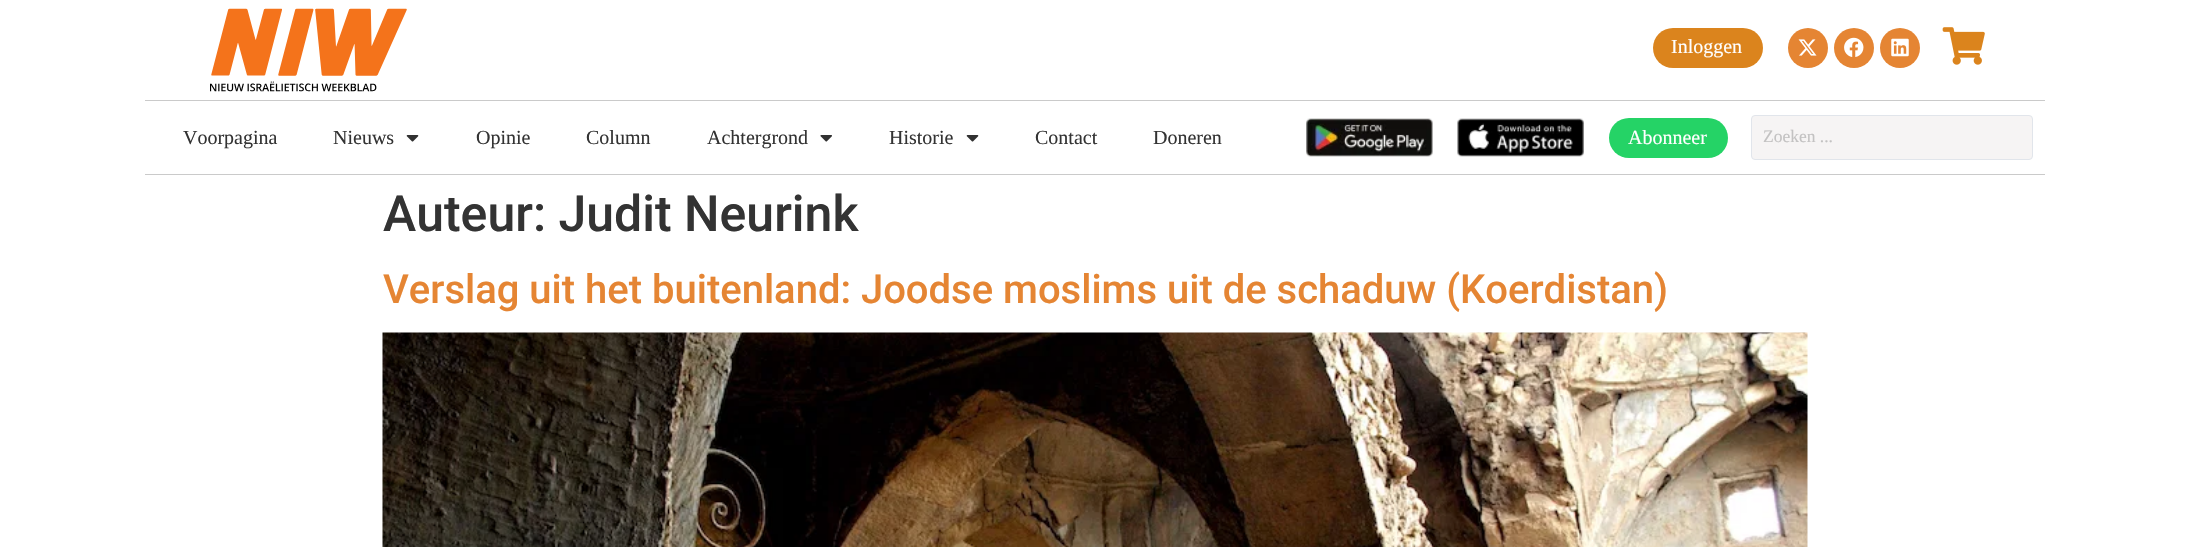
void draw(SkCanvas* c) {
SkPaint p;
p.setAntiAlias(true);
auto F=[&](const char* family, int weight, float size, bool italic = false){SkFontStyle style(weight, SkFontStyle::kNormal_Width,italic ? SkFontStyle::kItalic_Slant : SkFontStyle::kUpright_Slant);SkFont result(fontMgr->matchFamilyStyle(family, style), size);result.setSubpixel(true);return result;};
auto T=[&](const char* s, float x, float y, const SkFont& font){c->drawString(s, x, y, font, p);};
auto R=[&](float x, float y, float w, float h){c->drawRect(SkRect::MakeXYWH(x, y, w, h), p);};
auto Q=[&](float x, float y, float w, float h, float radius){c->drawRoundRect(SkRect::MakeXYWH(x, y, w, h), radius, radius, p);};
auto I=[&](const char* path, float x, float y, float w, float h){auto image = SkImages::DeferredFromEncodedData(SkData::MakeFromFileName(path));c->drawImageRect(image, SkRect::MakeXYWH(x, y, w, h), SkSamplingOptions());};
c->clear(0xffffffff);
I("1.png",210,8,197,84);
p.setColor(0xffdb841d);
Q(1653,28,110,40,20);
auto f1 = F("Tinos",400,20);
p.setColor(0xffffffff);
T("Inloggen",1671,53,f1);
p.setColor(0xffe58533);
c->drawCircle(1808,48,20,p);
I("2.png",1798,39,19,17);
c->drawCircle(1854,48,20,p);
I("3.png",1844,37,20,20);
c->drawCircle(1900,48,20,p);
I("4.png",1891,38,18,19);
I("5.png",1942,27,43,38);
p.setColor(0xffcacaca);
R(145,100,1900,1);
R(145,174,1900,1);
p.setColor(0xff333333);
T("Voorpagina",183,144,f1);
T("Nieuws",333,144,f1);
I("6.png",406,135,13,7);
T("Opinie",476,144,f1);
T("Column",586,144,f1);
T("Achtergrond",707,144,f1);
I("7.png",820,135,12,7);
T("Historie",889,144,f1);
I("6.png",966,135,13,7);
T("Contact",1035,144,f1);
T("Doneren",1153,144,f1);
I("8.png",1306,118,127,39);
I("9.png",1457,118,127,39);
p.setColor(0xff25d366);
Q(1609,118,119,40,20);
p.setColor(0xffffffff);
T("Abonneer",1628,144,f1);
p.setColor(0xfff6f4f4);
c->drawRoundRect(SkRect::MakeXYWH(1751.5,115.5,281,44),3.5,3.5,p);
p.setStroke(true);
p.setStrokeWidth(1);
p.setColor(0xffe1e5eb);
c->drawRoundRect(SkRect::MakeXYWH(1751.5,115.5,281,44),3.5,3.5,p);
auto f2 = F("Tinos",400,17.5);
p.setStroke(false);
p.setColor(0xffc3c2c2);
T("Zoeken ...",1763,142,f2);
auto f3 = F("Roboto",500,50);
p.setColor(0xff333333);
T("Auteur: Judit Neurink",383,231,f3);
auto f4 = F("Roboto",500,40);
p.setColor(0xffe58533);
T("Verslag uit het buitenland: Joodse moslims uit de schaduw (Koerdistan)",383,303,f4);
I("10.png",382,332,1426,215);
}
